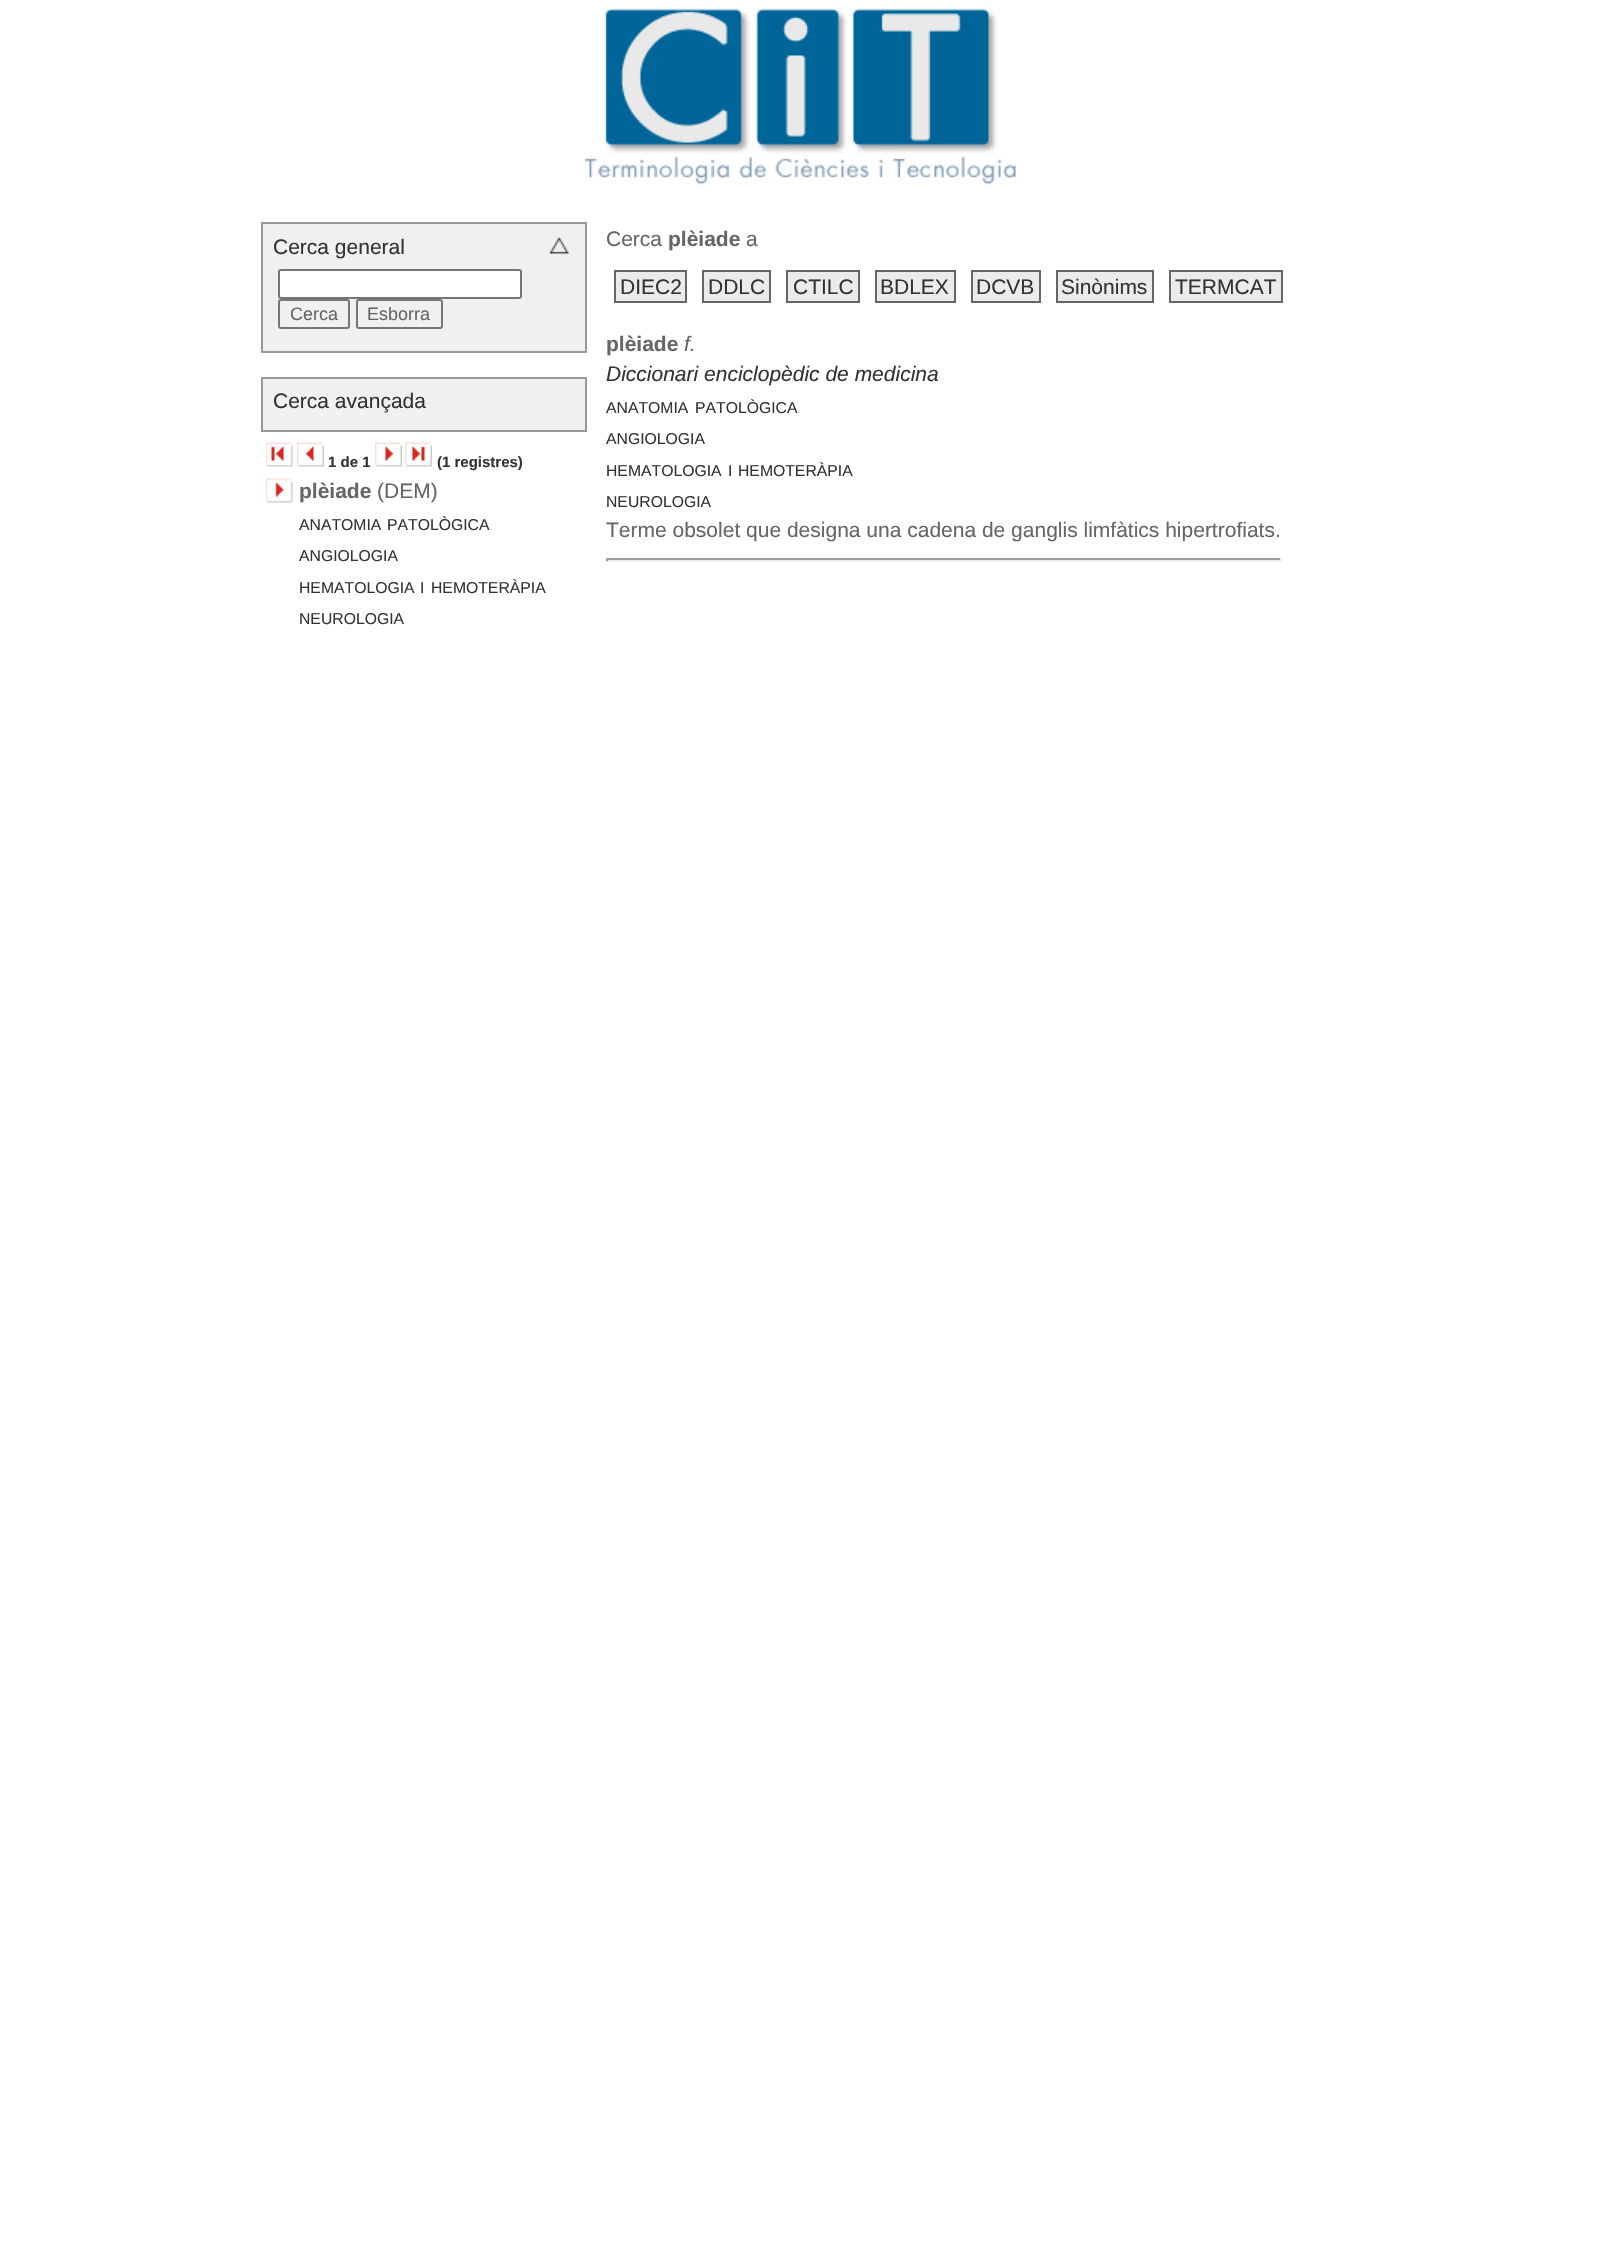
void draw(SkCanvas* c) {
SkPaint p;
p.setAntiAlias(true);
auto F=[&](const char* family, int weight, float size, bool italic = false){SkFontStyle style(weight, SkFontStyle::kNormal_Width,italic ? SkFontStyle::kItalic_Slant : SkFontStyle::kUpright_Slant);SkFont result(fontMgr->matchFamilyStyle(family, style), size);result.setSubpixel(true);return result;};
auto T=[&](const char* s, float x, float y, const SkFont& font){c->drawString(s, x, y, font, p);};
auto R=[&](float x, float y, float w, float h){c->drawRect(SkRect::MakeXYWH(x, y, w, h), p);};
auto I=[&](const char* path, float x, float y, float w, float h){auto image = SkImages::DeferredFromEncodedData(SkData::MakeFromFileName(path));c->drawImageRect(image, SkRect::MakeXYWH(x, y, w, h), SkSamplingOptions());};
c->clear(0xffffffff);
I("1.png",584,8,432,177);
p.setColor(0xfff0f0f0);
c->drawRect(SkRect::MakeXYWH(262,223,324,129),p);
p.setStroke(true);
p.setStrokeWidth(2);
p.setColor(0xff999999);
c->drawRect(SkRect::MakeXYWH(262,223,324,129),p);
I("2.png",548,237,21,17);
auto f1 = F("Liberation Sans",400,21);
p.setStroke(false);
p.setColor(0xff333333);
T("Cerca general",273,254,f1);
p.setColor(0xffffffff);
c->drawRoundRect(SkRect::MakeXYWH(279,270,242,28),2,2,p);
p.setStroke(true);
p.setColor(0xff767676);
c->drawRoundRect(SkRect::MakeXYWH(279,270,242,28),2,2,p);
c->drawRoundRect(SkRect::MakeXYWH(279,300,70,28),2,2,p);
auto f2 = F("Liberation Sans",400,18);
p.setStroke(false);
p.setColor(0xff666666);
T("Cerca",290,320,f2);
p.setStroke(true);
p.setColor(0xff767676);
c->drawRoundRect(SkRect::MakeXYWH(357,300,85,28),2,2,p);
p.setStroke(false);
p.setColor(0xff666666);
T("Esborra",367,320,f2);
p.setColor(0xfff0f0f0);
c->drawRect(SkRect::MakeXYWH(262,378,324,53),p);
p.setStroke(true);
p.setColor(0xff999999);
c->drawRect(SkRect::MakeXYWH(262,378,324,53),p);
p.setStroke(false);
p.setColor(0xff333333);
T("Cerca avançada",273,408,f1);
I("3.png",266,442,27,25);
I("4.png",297,442,27,25);
auto f3 = F("Liberation Sans",700,15);
T("1 de 1",328,467,f3);
I("5.png",375,442,27,25);
I("6.png",405,442,27,25);
T("(1 registres)",437,467,f3);
I("7.png",266,478,27,25);
auto f4 = F("Liberation Sans",700,21);
p.setColor(0xff666666);
T("plèiade",299,498,f4);
T("(DEM)",377,498,f1);
auto f5 = F("Liberation Sans",400,15.75);
p.setColor(0xff333333);
T("ANATOMIA",299,530,f5);
T("PATOLÒGICA",387,530,f5);
T("ANGIOLOGIA",299,561,f5);
T("HEMATOLOGIA",299,593,f5);
T("I",420,593,f5);
T("HEMOTERÀPIA",431,593,f5);
T("NEUROLOGIA",299,624,f5);
p.setColor(0xff666666);
T("Cerca",606,246,f1);
T("plèiade",668,246,f4);
T("a",746,246,f1);
p.setColor(0xffebebeb);
c->drawRect(SkRect::MakeXYWH(615,271,71,31),p);
p.setStroke(true);
p.setColor(0xff666666);
c->drawRect(SkRect::MakeXYWH(615,271,71,31),p);
p.setStroke(false);
p.setColor(0xff333333);
T("DIEC2",620,294,f1);
p.setColor(0xffebebeb);
c->drawRect(SkRect::MakeXYWH(703,271,67,31),p);
p.setStroke(true);
p.setColor(0xff666666);
c->drawRect(SkRect::MakeXYWH(703,271,67,31),p);
p.setStroke(false);
p.setColor(0xff333333);
T("DDLC",708,294,f1);
p.setColor(0xffebebeb);
c->drawRect(SkRect::MakeXYWH(787,271,72,31),p);
p.setStroke(true);
p.setColor(0xff666666);
c->drawRect(SkRect::MakeXYWH(787,271,72,31),p);
p.setStroke(false);
p.setColor(0xff333333);
T("CTILC",793,294,f1);
p.setColor(0xffebebeb);
c->drawRect(SkRect::MakeXYWH(876,271,79,31),p);
p.setStroke(true);
p.setColor(0xff666666);
c->drawRect(SkRect::MakeXYWH(876,271,79,31),p);
p.setStroke(false);
p.setColor(0xff333333);
T("BDLEX",880,294,f1);
p.setColor(0xffebebeb);
c->drawRect(SkRect::MakeXYWH(972,271,68,31),p);
p.setStroke(true);
p.setColor(0xff666666);
c->drawRect(SkRect::MakeXYWH(972,271,68,31),p);
p.setStroke(false);
p.setColor(0xff333333);
T("DCVB",976,294,f1);
p.setColor(0xffebebeb);
c->drawRect(SkRect::MakeXYWH(1057,271,96,31),p);
p.setStroke(true);
p.setColor(0xff666666);
c->drawRect(SkRect::MakeXYWH(1057,271,96,31),p);
p.setStroke(false);
p.setColor(0xff333333);
T("Sinònims",1061,294,f1);
p.setColor(0xffebebeb);
c->drawRect(SkRect::MakeXYWH(1170,271,112,31),p);
p.setStroke(true);
p.setColor(0xff666666);
c->drawRect(SkRect::MakeXYWH(1170,271,112,31),p);
p.setStroke(false);
p.setColor(0xff333333);
T("TERMCAT",1175,294,f1);
p.setColor(0xff666666);
T("plèiade",606,351,f4);
auto f6 = F("Liberation Sans",400,21,true);
T("f.",684,351,f6);
p.setColor(0xff333333);
T("Diccionari enciclopèdic de medicina",606,381,f6);
T("ANATOMIA",606,413,f5);
T("PATOLÒGICA",695,413,f5);
T("ANGIOLOGIA",606,444,f5);
T("HEMATOLOGIA",606,476,f5);
T("I",728,476,f5);
T("HEMOTERÀPIA",738,476,f5);
T("NEUROLOGIA",606,507,f5);
p.setColor(0xff666666);
T("Terme obsolet que designa una cadena de ganglis limfàtics hipertrofiats.",606,537,f1);
p.setColor(0xff9f9f9f);
R(606,558,675,2);
p.setColor(0xffeeeeee);
R(1280,558,2,3);
R(606,560,675,2);
p.setColor(0xff9f9f9f);
R(606,558,2,3);
}
